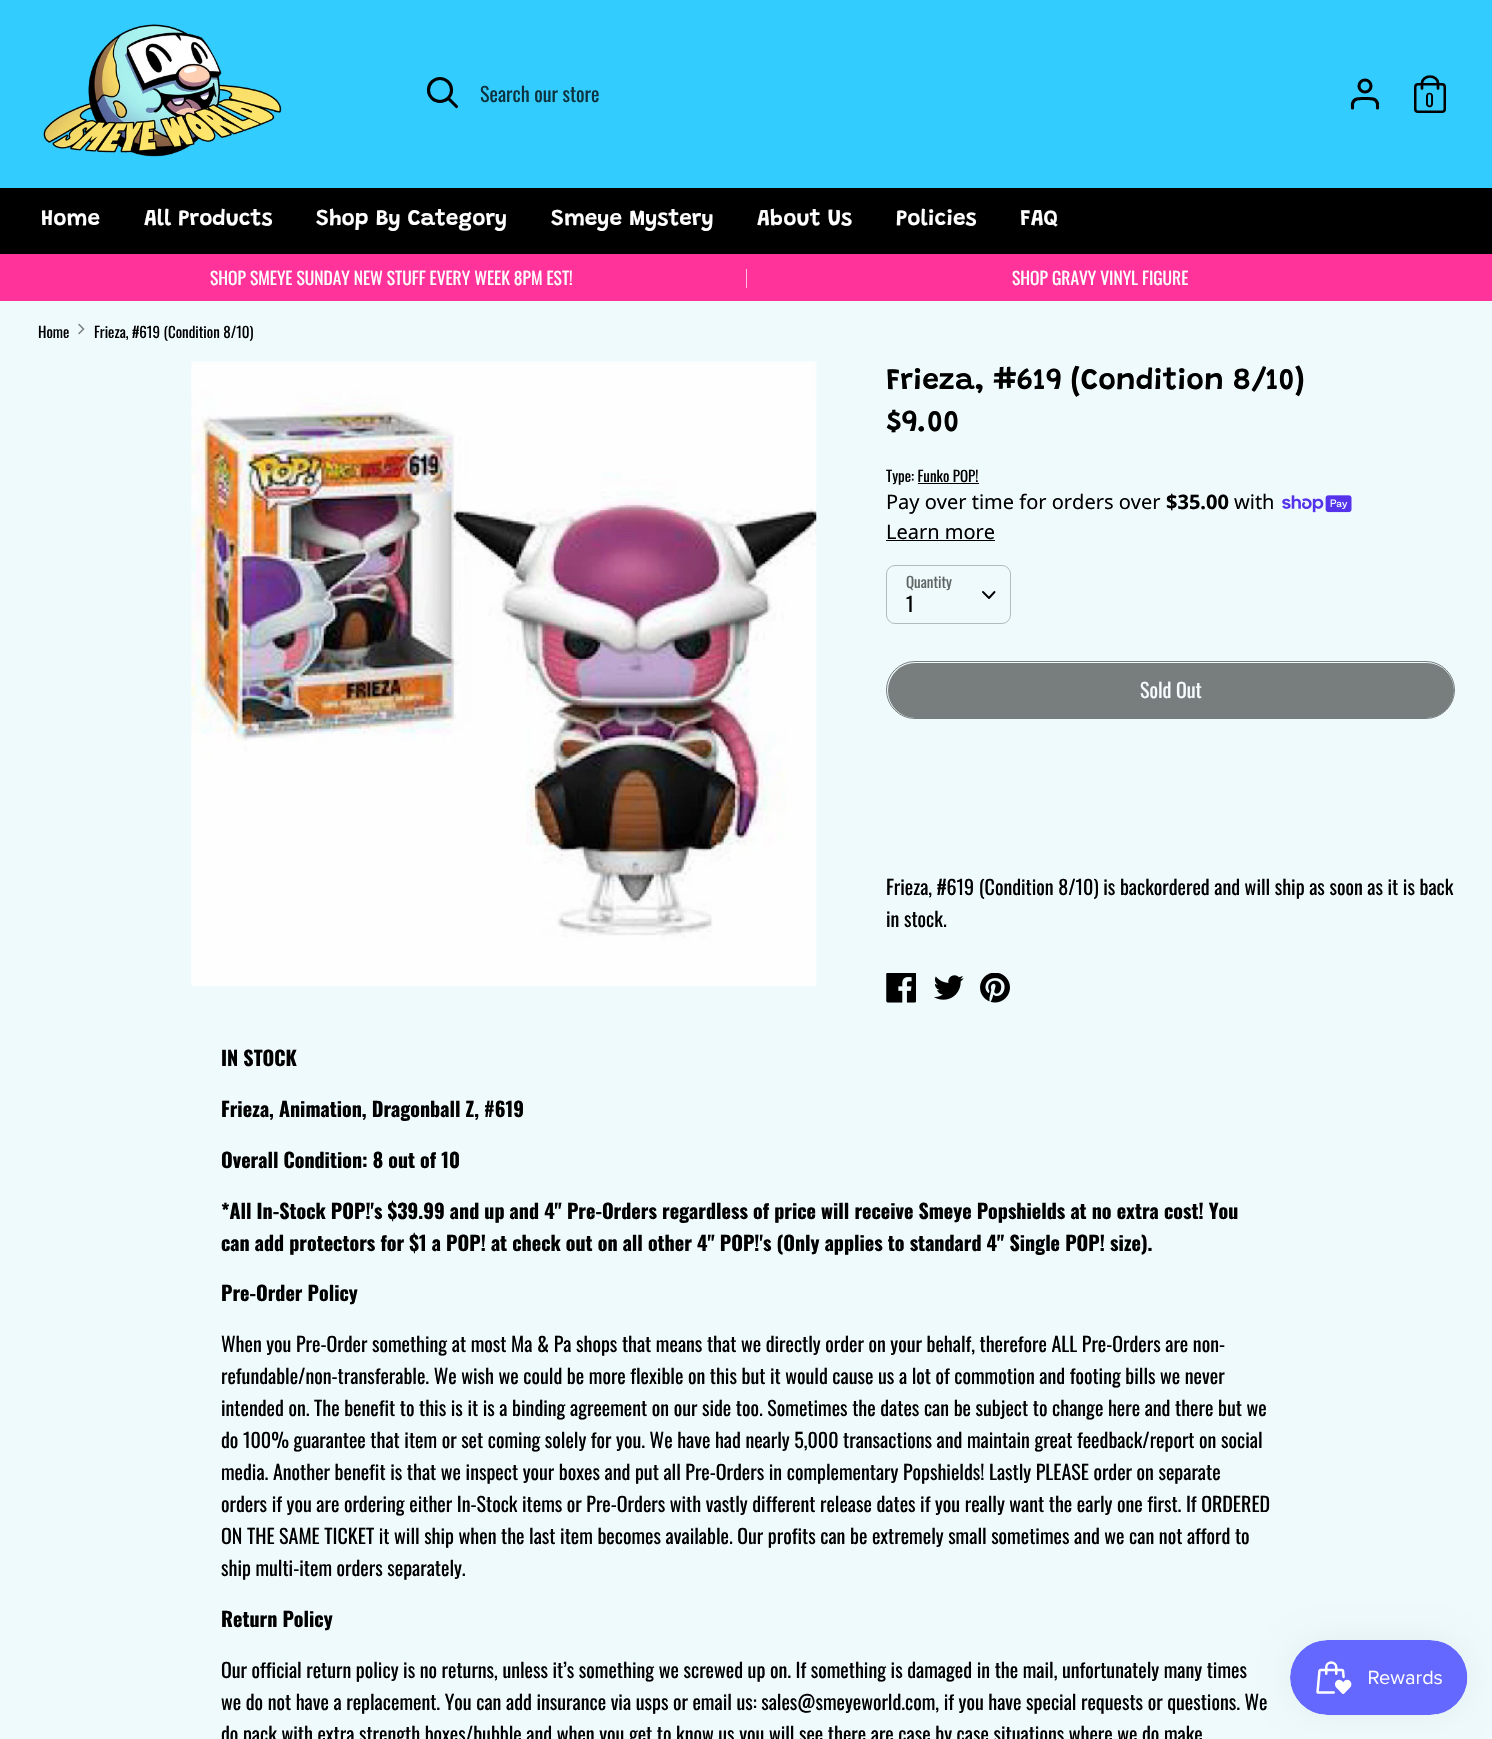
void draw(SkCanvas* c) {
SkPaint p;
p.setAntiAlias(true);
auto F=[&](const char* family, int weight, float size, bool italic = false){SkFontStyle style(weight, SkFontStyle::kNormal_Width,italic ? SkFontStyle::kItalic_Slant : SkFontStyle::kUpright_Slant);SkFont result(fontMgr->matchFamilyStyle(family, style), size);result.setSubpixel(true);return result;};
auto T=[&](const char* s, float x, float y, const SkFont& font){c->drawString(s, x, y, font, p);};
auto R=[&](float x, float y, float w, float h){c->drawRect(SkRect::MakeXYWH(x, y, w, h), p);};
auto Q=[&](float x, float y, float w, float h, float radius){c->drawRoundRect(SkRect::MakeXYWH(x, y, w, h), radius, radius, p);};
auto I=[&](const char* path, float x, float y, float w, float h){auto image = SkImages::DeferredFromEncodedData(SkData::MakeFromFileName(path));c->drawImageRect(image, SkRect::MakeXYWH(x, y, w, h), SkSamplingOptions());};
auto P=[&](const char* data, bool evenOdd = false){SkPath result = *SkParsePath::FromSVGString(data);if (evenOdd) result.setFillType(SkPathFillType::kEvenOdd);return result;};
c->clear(0xffeffafc);
p.setColor(0xff33ccff);
R(0,0,1492,188);
I("1.png",43,24,239,133);
p.setStroke(true);
p.setStrokeWidth(3.1);
p.setColor(0xff000000);
c->drawCircle(440,90,11.5,p);
p.setStrokeCap(SkPaint::kRound_Cap);
c->drawPath(P("M456.5 106.5l-8-8"),p);
auto f1 = F("Oswald",400,20);
p.setStroke(false);
p.setColor(0xff0d3340);
T("Search our store",480,102,f1);
p.setStroke(true);
p.setColor(0xff000000);
c->drawPath(P("M1377.5 108v-4.5c-1.5-6-8-5-12.5-5c-4.5 0-11-1-12.5 5v4.5"),p);
p.setStrokeCap(SkPaint::kButt_Cap);
c->drawCircle(1365,86,6,p);
p.setStrokeWidth(2.5);
c->drawRoundRect(SkRect::MakeXYWH(1415.25,84.25,29.5,27.5),2.75,2.75,p);
p.setStrokeWidth(2.7);
p.setStrokeCap(SkPaint::kRound_Cap);
c->drawPath(P("M1422 88.5v-5.5c0-3.5 3.5-6.5 8-6.5c4.5 0 8 3 8 6.5v5.5"),p);
auto f2 = F("Oswald",400,17.5);
p.setStroke(false);
T("0",1425,107,f2);
R(0,188,1492,66);
auto f3 = F("Grandstander",600,22.5);
p.setColor(0xffffffff);
T("Home",41,225,f3);
T("All Products",144,225,f3);
T("Shop By Category",316,225,f3);
T("Smeye Mystery",551,225,f3);
T("About Us",757,225,f3);
T("Policies",896,225,f3);
T("FAQ",1020,225,f3);
p.setColor(0xffff3399);
R(0,254,1492,47);
p.setColor(0xffffffff);
T("SHOP SMEYE SUNDAY NEW STUFF EVERY WEEK 8PM EST!",210,285,f2);
p.setColor(0xffffc2e0);
R(746,269,1,19);
p.setColor(0xffffffff);
T("SHOP GRAVY VINYL FIGURE",1012,285,f2);
auto f4 = F("Oswald",400,15);
p.setColor(0xff000000);
T("Home",38,338,f4);
p.setStroke(true);
p.setStrokeWidth(1.5);
p.setColor(0xff787d7e);
c->drawPath(P("M79 333.5l4.5-4.5l-4.5-4.5"),p);
p.setStroke(false);
p.setColor(0xff000000);
T("Frieza, #619 (Condition 8/10)",94,338,f4);
I("2.png",191,361,626,625);
auto f5 = F("Grandstander",600,30);
T("Frieza, #619 (Condition 8/10)",886,389,f5);
T("$9.00",886,431,f5);
T("Type: Funko POP!",886,482,f4);
R(918,483,61,1);
auto f6 = F("Noto Sans",400,20);
T("Pay over time for orders over",886,509,f6);
auto f7 = F("Noto Sans",700,20);
T("$35.00",1166,509,f7);
T("with",1234,509,f6);
I("3.png",1282,495,70,18);
T("Learn more",886,539,f6);
R(886,540,109,1);
p.setStroke(true);
p.setStrokeWidth(1);
p.setStrokeCap(SkPaint::kButt_Cap);
p.setColor(0xffb3bbbd);
c->drawRoundRect(SkRect::MakeXYWH(886.5,565.5,124,58),8.5,8.5,p);
p.setStroke(false);
p.setColor(0xff5f6464);
T("Quantity",906,588,f4);
p.setStroke(true);
p.setStrokeWidth(1.9);
p.setStrokeCap(SkPaint::kRound_Cap);
p.setStrokeJoin(SkPaint::kRound_Join);
p.setColor(0xff000000);
c->drawPath(P("M983 592l6 6l5.5-6"),p);
p.setStroke(false);
T("1",906,612,f1);
p.setStroke(true);
p.setStrokeWidth(1);
p.setStrokeCap(SkPaint::kButt_Cap);
p.setStrokeJoin(SkPaint::kMiter_Join);
p.setColor(0xff787d7e);
c->drawRoundRect(SkRect::MakeXYWH(886.5,661.5,568,57),28.5,28.5,p);
p.setStroke(false);
Q(888,663,566,55,27.5);
p.setColor(0xfff7fdfe);
T("Sold Out",1140,698,f1);
p.setColor(0xff000000);
T("Frieza, #619 (Condition 8/10) is backordered and will ship as soon as it is back",886,895,f1);
T("in stock.",886,927,f1);
I("4.png",886,973,30,30);
I("5.png",934,975,30,25);
I("6.png",980,973,30,30);
auto f8 = F("Oswald",700,20);
T("IN STOCK",221,1066,f8);
T("Frieza, Animation, Dragonball Z, #619",221,1117,f8);
T("Overall Condition: 8 out of 10",221,1168,f8);
T("*All In-Stock POP!'s $39.99 and up and 4\" Pre-Orders regardless of price will receive Smeye Popshields at no extra cost! You",221,1219,f8);
T("can add protectors for $1 a POP! at check out on all other 4\" POP!'s (Only applies to standard 4\" Single POP! size).",221,1251,f8);
T("Pre-Order Policy",221,1301,f8);
T("When you Pre-Order something at most Ma & Pa shops that means that we directly order on your behalf, therefore ALL Pre-Orders are non-",221,1352,f1);
T("refundable/non-transferable. We wish we could be more flexible on this but it would cause us a lot of commotion and footing bills we never",221,1384,f1);
T("intended on. The benefit to this is it is a binding agreement on our side too. Sometimes the dates can be subject to change here and there but we",221,1416,f1);
T("do 100% guarantee that item or set coming solely for you. We have had nearly 5,000 transactions and maintain great feedback/report on social",221,1448,f1);
T("media. Another benefit is that we inspect your boxes and put all Pre-Orders in complementary Popshields! Lastly PLEASE order on separate",221,1480,f1);
T("orders if you are ordering either In-Stock items or Pre-Orders with vastly different release dates if you really want the early one first. If ORDERED",221,1512,f1);
T("ON THE SAME TICKET it will ship when the last item becomes available. Our profits can be extremely small sometimes and we can not afford to",221,1544,f1);
T("ship multi-item orders separately.",221,1576,f1);
T("Return Policy",221,1627,f8);
T("Our official return policy is no returns, unless it’s something we screwed up on. If something is damaged in the mail, unfortunately many times",221,1678,f1);
T("we do not have a replacement. You can add insurance via usps or email us: sales@smeyeworld.com, if you have special requests or questions. We",221,1710,f1);
T("do pack with extra strength boxes/bubble and when you get to know us you will see there are case by case situations where we do make",221,1742,f1);
p.setColor(0x0d000000);
p.setMaskFilter(SkMaskFilter::MakeBlur(kNormal_SkBlurStyle, 15.5));
c->drawRoundRect(SkRect::MakeXYWH(1290,1640,178,75),37.5,37.5,p);
p.setMaskFilter(nullptr);
I("7.png",1290,1640,178,75);
}
